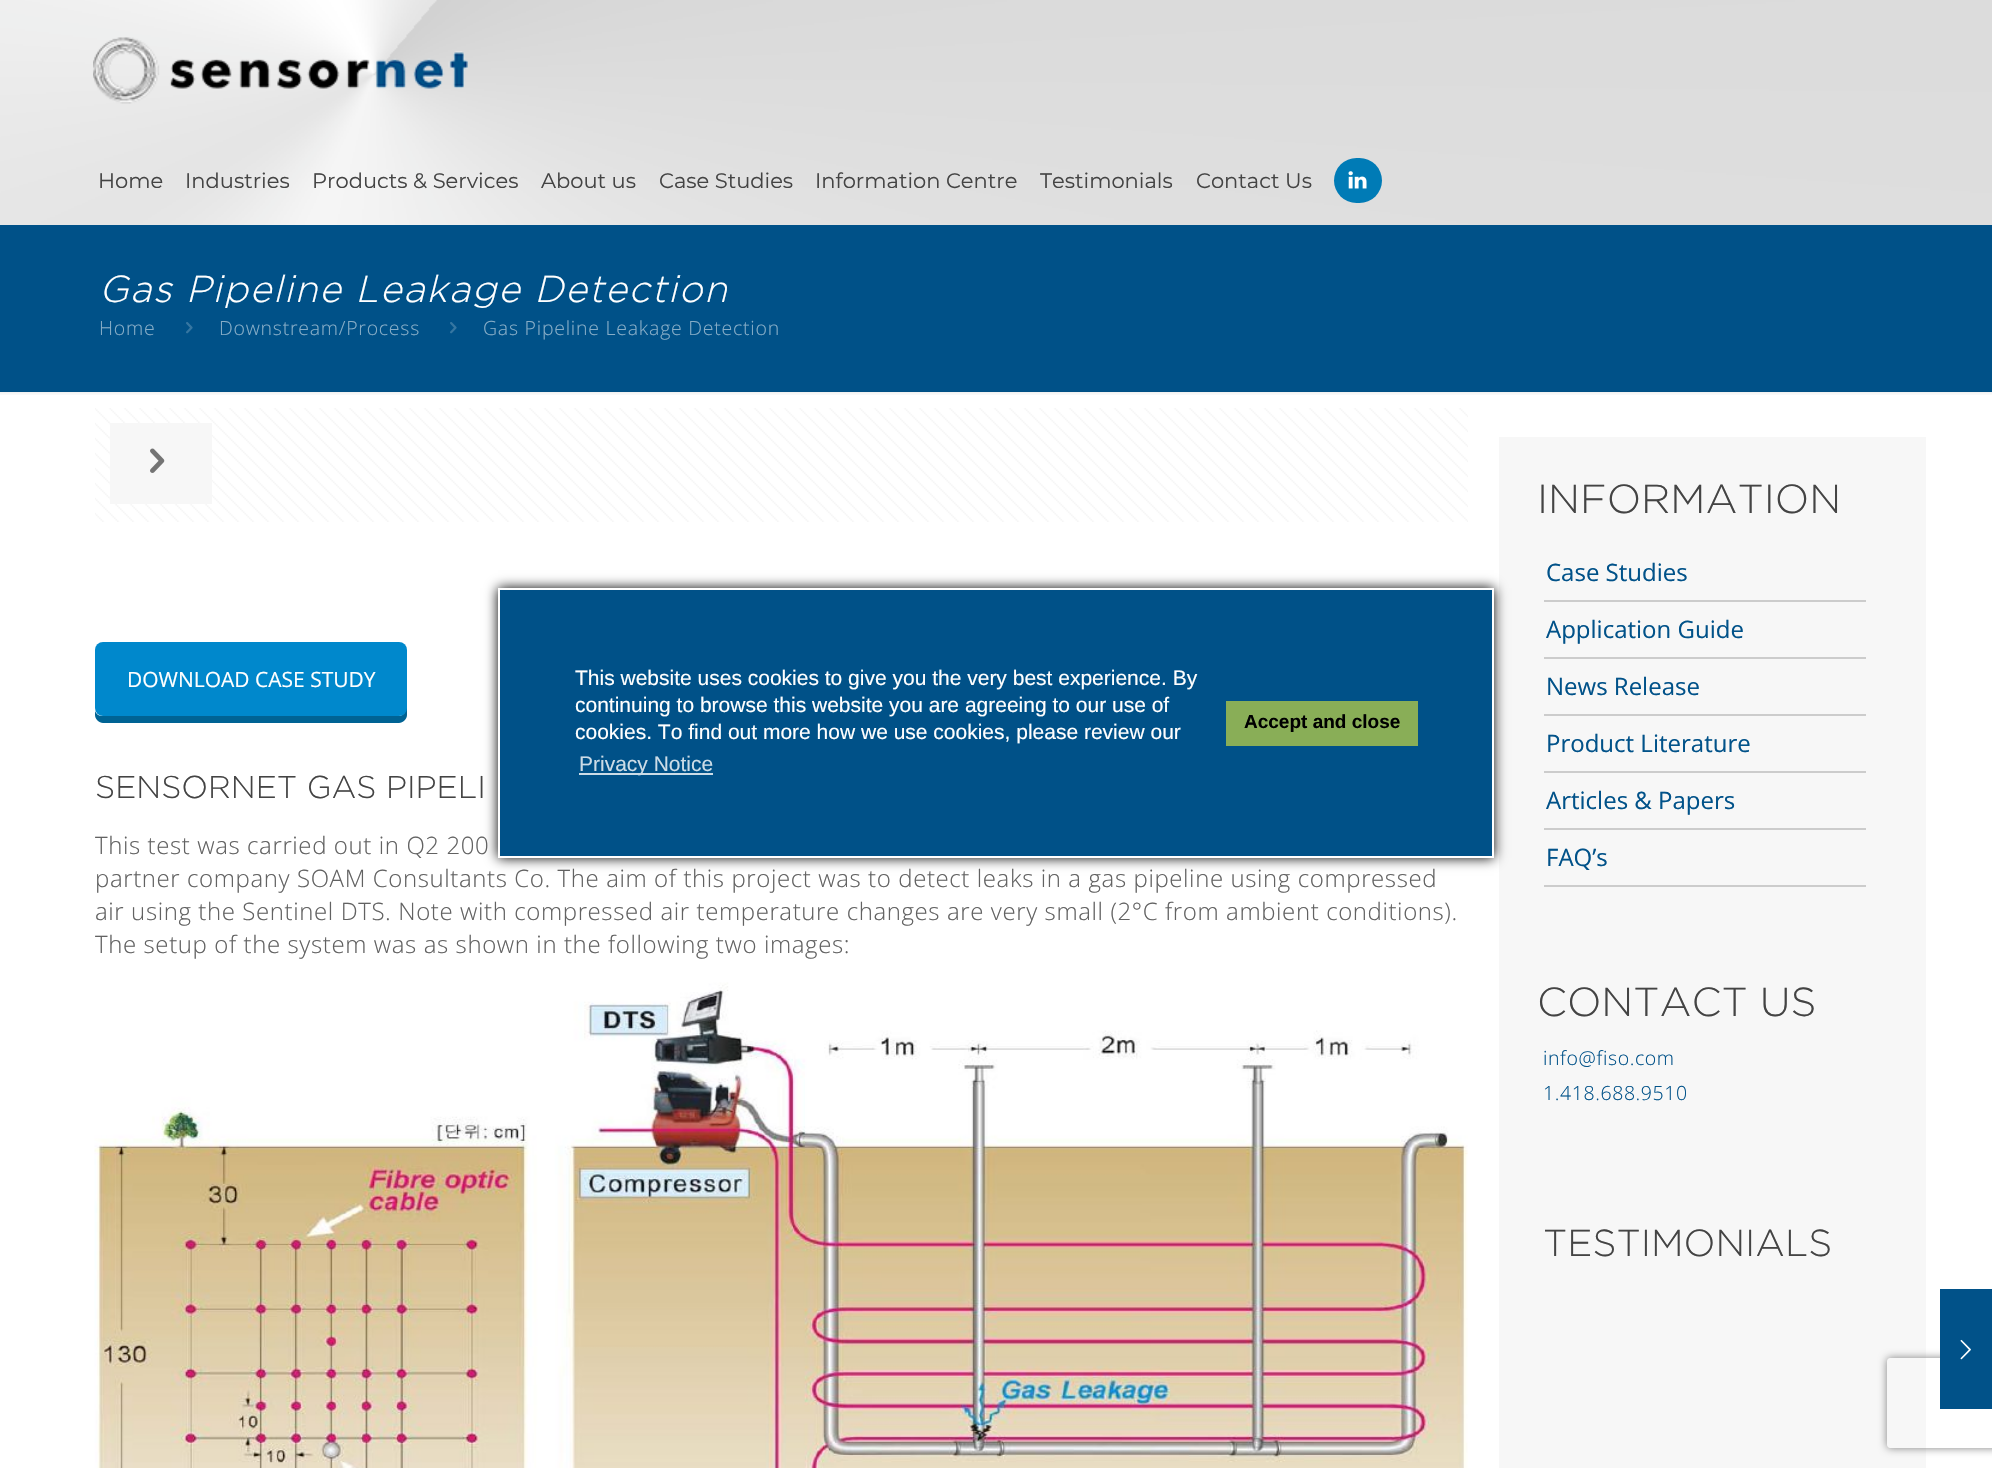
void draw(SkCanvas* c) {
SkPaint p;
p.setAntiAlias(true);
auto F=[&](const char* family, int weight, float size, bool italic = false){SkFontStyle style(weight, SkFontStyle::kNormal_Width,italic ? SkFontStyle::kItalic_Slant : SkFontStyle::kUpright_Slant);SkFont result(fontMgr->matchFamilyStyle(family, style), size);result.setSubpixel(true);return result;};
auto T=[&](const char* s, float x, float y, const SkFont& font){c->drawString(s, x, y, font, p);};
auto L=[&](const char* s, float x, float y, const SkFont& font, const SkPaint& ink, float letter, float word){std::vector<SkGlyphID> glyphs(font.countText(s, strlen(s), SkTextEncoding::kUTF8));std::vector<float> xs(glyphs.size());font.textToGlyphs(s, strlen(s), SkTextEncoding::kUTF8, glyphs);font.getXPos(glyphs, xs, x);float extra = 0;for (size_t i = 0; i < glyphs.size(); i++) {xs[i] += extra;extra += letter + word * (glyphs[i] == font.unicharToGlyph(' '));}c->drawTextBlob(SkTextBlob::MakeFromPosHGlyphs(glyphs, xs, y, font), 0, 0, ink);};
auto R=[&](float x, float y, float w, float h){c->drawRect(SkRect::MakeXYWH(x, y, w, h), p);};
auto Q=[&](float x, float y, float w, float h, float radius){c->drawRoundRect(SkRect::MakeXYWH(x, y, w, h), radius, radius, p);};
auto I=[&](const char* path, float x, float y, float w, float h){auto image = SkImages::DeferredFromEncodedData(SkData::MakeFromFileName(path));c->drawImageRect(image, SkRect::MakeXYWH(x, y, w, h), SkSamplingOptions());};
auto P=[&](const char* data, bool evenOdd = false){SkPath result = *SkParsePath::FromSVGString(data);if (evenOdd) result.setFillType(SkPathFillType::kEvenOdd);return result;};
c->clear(0xffffffff);
I("1.png",0,0,1992,225);
I("2.png",93,37,375,67);
auto f1 = F("Montserrat",400,21);
p.setColor(0xff444444);
T("Home",98,188,f1);
T("Industries",185,188,f1);
T("Products & Services",312,188,f1);
T("About us",541,188,f1);
T("Case Studies",659,188,f1);
T("Information Centre",815,188,f1);
T("Testimonials",1040,188,f1);
T("Contact Us",1196,188,f1);
p.setColor(0xff007bb6);
Q(1334,158,48,45,22.5);
I("3.png",1348,171,19,18);
p.setColor(0xff005188);
R(0,225,1992,167);
auto f2 = F("Gotham",300,37.5,true);
p.setColor(0xffffffff);
L("Gas Pipeline Leakage Detection",99,302,f2,p,1.5,0);
auto f3 = F("Open Sans",300,19.5);
p.setColor(0xff87adc7);
L("Home",99,335,f3,p,.75,0);
I("4.png",186,322,7,12);
L("Downstream/Process",219,335,f3,p,.75,0);
I("4.png",450,322,7,12);
L("Gas Pipeline Leakage Detection",483,335,f3,p,.75,0);
I("5.png",0,391,1992,4);
I("6.png",95,408,1373,114);
p.setColor(0xfff7f7f7);
R(110,423,102,81);
I("7.png",150,448,15,25);
p.setColor(0xff006394);
c->drawPath(P("M95 711v4c0 4 4 8 8 8h296c4 0 8-4 8-8v-57l-1-3v53c0 4-3 8-7 8h-297c-3 0-6-2-7-5z"),p);
p.setColor(0xff0088cc);
Q(95,642,312,74,8);
auto f4 = F("Open Sans",400,21);
p.setColor(0xffffffff);
T("DOWNLOAD CASE STUDY",127,687,f4);
auto f5 = F("Gotham",300,31.5);
p.setColor(0xff444444);
T("SENSORNET GAS PIPELI",95,798,f5);
auto f6 = F("Open Sans",300,24);
p.setColor(0xff626262);
L("This test was carried out in Q2 200",95,854,f6,p,.6,0);
L("partner company SOAM Consultants Co. The aim of this project was to detect leaks in a gas pipeline using compressed",95,887,f6,p,.6,0);
L("air using the Sentinel DTS. Note with compressed air temperature changes are very small (2°C from ambient conditions).",95,920,f6,p,.6,0);
L("The setup of the system was as shown in the following two images:",95,953,f6,p,.6,0);
I("8.png",94,982,1374,486);
p.setColor(0xfff7f7f7);
R(1499,437,427,1031);
auto f7 = F("Gotham",300,40.5);
p.setColor(0xff444444);
T("INFORMATION",1537,513,f7);
p.setColor(0xffcccccc);
R(1544,600,322,2);
auto f8 = F("Open Sans",400,24);
p.setColor(0xff015289);
T("Case Studies",1546,581,f8);
p.setColor(0xffcccccc);
R(1544,657,322,2);
p.setColor(0xff015289);
T("Application Guide",1546,638,f8);
p.setColor(0xffcccccc);
R(1544,714,322,2);
p.setColor(0xff015289);
T("News Release",1546,695,f8);
p.setColor(0xffcccccc);
R(1544,771,322,2);
p.setColor(0xff015289);
T("Product Literature",1546,752,f8);
p.setColor(0xffcccccc);
R(1544,828,322,2);
p.setColor(0xff015289);
T("Articles & Papers",1546,809,f8);
p.setColor(0xffcccccc);
R(1544,885,322,2);
p.setColor(0xff015289);
T("FAQ’s",1546,866,f8);
p.setColor(0xff444444);
T("CONTACT US",1537,1016,f7);
p.setColor(0xff015289);
L("info@fiso.com",1543,1065,f3,p,.6,0);
L("1.418.688.9510",1543,1100,f3,p,.6,0);
auto f9 = F("Gotham",300,37.5);
p.setColor(0xff444444);
T("TESTIMONIALS",1543,1256,f9);
p.setColor(0xff000000);
p.setMaskFilter(SkMaskFilter::MakeBlur(kNormal_SkBlurStyle, 6));
c->drawRect(SkRect::MakeXYWH(498,588,996,270),p);
p.setMaskFilter(nullptr);
p.setColor(0xff005188);
c->drawRect(SkRect::MakeXYWH(499,589,994,268),p);
p.setStroke(true);
p.setStrokeWidth(2);
p.setColor(0xffffffff);
c->drawRect(SkRect::MakeXYWH(499,589,994,268),p);
auto f10 = F("Liberation Sans",400,21);
p.setStroke(false);
T("This website uses cookies to give you the very best experience. By",575,685,f10);
T("continuing to browse this website you are agreeing to our use of",575,712,f10);
T("cookies. To find out more how we use cookies, please review our",575,739,f10);
p.setColor(0xffccdce7);
R(579,773,134,2);
T("Privacy Notice",579,771,f10);
p.setColor(0xff89ae57);
R(1226,701,192,45);
auto f11 = F("Liberation Sans",700,19);
p.setColor(0xff000000);
T("Accept and close",1244,728,f11);
c->save();
c->clipPath(P("M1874 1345h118v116h-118zm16 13h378c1.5 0 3 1.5 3 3v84c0 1.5-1.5 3-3 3h-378c-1.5 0-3-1.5-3-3v-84c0-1.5 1.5-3 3-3z",true),true);
p.setColor(0xff808080);
p.setMaskFilter(SkMaskFilter::MakeBlur(kNormal_SkBlurStyle, 4));
c->drawRoundRect(SkRect::MakeXYWH(1887,1358,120,90),3,3,p);
p.setMaskFilter(nullptr);
c->restore();
p.setColor(0xff015289);
R(1940,1289,52,120);
I("9.png",1960,1339,11,21);
}
